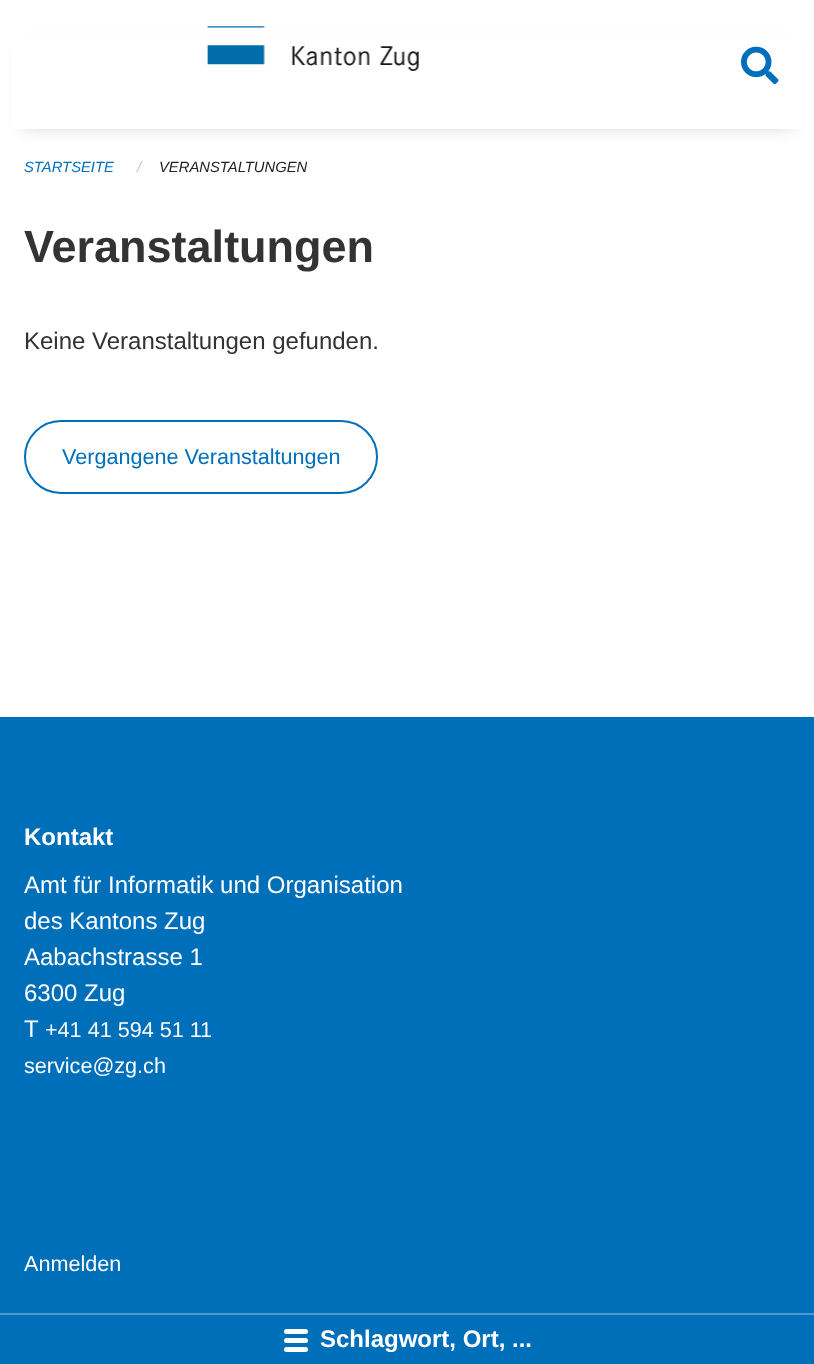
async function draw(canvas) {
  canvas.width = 814;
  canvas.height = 1364;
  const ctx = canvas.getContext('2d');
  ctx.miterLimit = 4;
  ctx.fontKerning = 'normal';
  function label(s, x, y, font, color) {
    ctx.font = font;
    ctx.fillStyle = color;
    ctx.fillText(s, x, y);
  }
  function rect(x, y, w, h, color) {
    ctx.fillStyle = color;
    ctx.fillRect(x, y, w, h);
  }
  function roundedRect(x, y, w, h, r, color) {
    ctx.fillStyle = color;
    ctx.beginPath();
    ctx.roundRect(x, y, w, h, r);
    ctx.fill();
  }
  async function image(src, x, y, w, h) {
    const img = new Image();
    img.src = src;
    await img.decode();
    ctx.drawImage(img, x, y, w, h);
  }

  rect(0, 0, 814, 1364, '#fff');
  ctx.fillStyle = '#00000026';
  ctx.filter = 'blur(7.5px)';
  ctx.beginPath();
  ctx.rect(23, 45, 769, 84);
  ctx.fill();
  ctx.filter = 'none';
  rect(12, 34, 791, 95, '#fff');
  await image('assets/img1.png', 207, 26, 213, 45);
  await image('assets/img2.png', 741, 46, 38, 39);
  label('STARTSEITE', 24, 172, 'italic 14.8px Liberation Sans', '#006fba');
  label('/', 137, 172, 'italic 16px Liberation Sans', '#cacaca');
  label('VERANSTALTUNGEN', 159, 172, 'italic 14.8px Liberation Sans', '#222');
  label('Veranstaltungen', 24, 262, 'bold 45px Liberation Sans', '#333');
  label('Keine Veranstaltungen gefunden.', 24, 349, '24px Liberation Sans', '#333');
  ctx.beginPath();
  ctx.roundRect(25, 421, 352, 72, 36);
  ctx.strokeStyle = '#006fba';
  ctx.lineWidth = 2;
  ctx.stroke();
  label('Vergangene Veranstaltungen', 62, 464, '21.6px Liberation Sans', '#006fba');
  rect(0, 717, 814, 647, '#006fba');
  label('Kontakt', 24, 845, 'bold 24px Liberation Sans', '#fff');
  label('Amt für Informatik und Organisation', 24, 893, '24px Liberation Sans', '#fff');
  label('des Kantons Zug', 24, 929, '24px Liberation Sans', '#fff');
  label('Aabachstrasse 1', 24, 965, '24px Liberation Sans', '#fff');
  label('6300 Zug', 24, 1001, '24px Liberation Sans', '#fff');
  label('T', 24, 1037, '24px Liberation Sans', '#fff');
  label('+41 41 594 51 11', 45, 1037, '21.6px Liberation Sans', '#fff');
  label('service@zg.ch', 24, 1073, '21.6px Liberation Sans', '#fff');
  label('Anmelden', 24, 1271, '21.6px Liberation Sans', '#fff');
  rect(0, 1313, 814, 2, '#4d9acf');
  roundedRect(284, 1329, 24, 5, 2.5, '#fff');
  roundedRect(284, 1338, 24, 5, 2.5, '#fff');
  roundedRect(284, 1347, 24, 5, 2.5, '#fff');
  label('Schlagwort, Ort, ...', 320, 1347, 'bold 24px Liberation Sans', '#fff');
}

draw(document.querySelector('canvas'));
